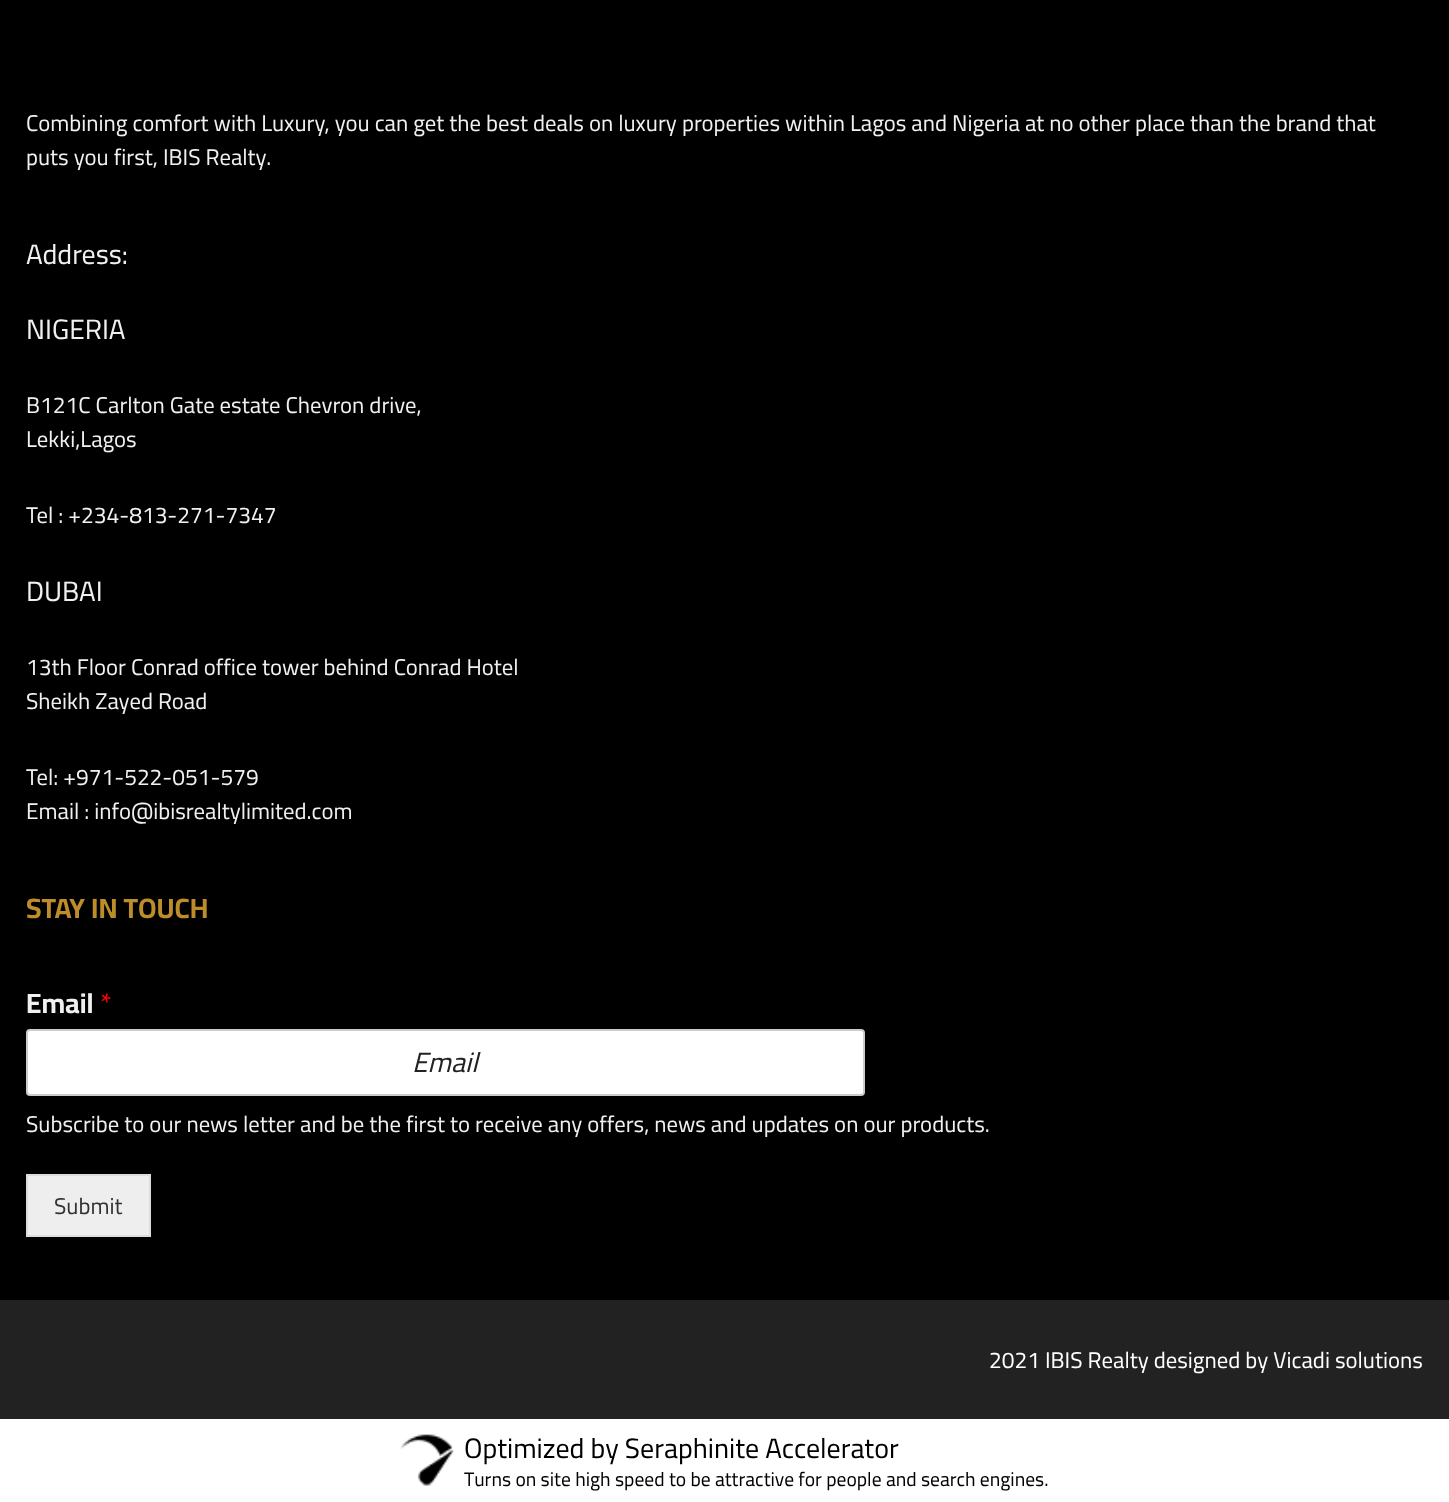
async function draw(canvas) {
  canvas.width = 1449;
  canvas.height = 1502;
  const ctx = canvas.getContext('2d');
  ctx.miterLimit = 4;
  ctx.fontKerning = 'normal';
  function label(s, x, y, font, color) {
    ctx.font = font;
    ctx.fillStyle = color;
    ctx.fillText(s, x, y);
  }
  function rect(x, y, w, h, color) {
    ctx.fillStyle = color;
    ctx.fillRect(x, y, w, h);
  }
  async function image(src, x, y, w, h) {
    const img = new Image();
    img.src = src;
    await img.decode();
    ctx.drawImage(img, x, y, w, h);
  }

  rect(0, 0, 1449, 1502, '#fff');
  rect(0, 0, 1449, 1300, '#000');
  label('Combining comfort with Luxury, you can get the best deals on luxury properties within Lagos and Nigeria at no other place than the brand that', 26, 131, '22.75px Cairo', '#f0f0f0');
  label('puts you first, IBIS Realty.', 26, 165, '22.75px Cairo', '#f0f0f0');
  label('Address:', 26, 264, '28px Cairo', '#f0f0f0');
  label('NIGERIA', 26, 339, '28px Cairo', '#f0f0f0');
  label('B121C Carlton Gate estate Chevron drive,', 26, 413, '22.75px Cairo', '#f0f0f0');
  label('Lekki,Lagos', 26, 447, '22.75px Cairo', '#f0f0f0');
  label('Tel : +234-813-271-7347', 26, 523, '22.75px Cairo', '#f0f0f0');
  label('DUBAI', 26, 601, '28px Cairo', '#f0f0f0');
  label('13th Floor Conrad office tower behind Conrad Hotel', 26, 675, '22.75px Cairo', '#f0f0f0');
  label('Sheikh Zayed Road', 26, 709, '22.75px Cairo', '#f0f0f0');
  label('Tel: +971-522-051-579', 26, 785, '22.75px Cairo', '#f0f0f0');
  label('Email : info@ibisrealtylimited.com', 26, 819, '22.75px Cairo', '#f0f0f0');
  label('STAY IN TOUCH', 26, 918, 'bold 28px Cairo', '#bd8d29');
  label('Email', 26, 1013, 'bold 28px Cairo', '#f0f0f0');
  label('*', 100, 1013, '28px Cairo', '#f00');
  ctx.fillStyle = '#fff';
  ctx.beginPath();
  ctx.roundRect(27, 1030, 837, 65, 3);
  ctx.fill();
  ctx.strokeStyle = '#ccc';
  ctx.lineWidth = 2;
  ctx.stroke();
  label('Email', 412, 1072, 'italic 28px Cairo', '#222');
  label('Subscribe to our news letter and be the first to receive any offers, news and updates on our products.', 26, 1132, '22.75px Cairo', '#f0f0f0');
  ctx.fillStyle = '#eee';
  ctx.beginPath();
  ctx.rect(27, 1175, 123, 61);
  ctx.fill();
  ctx.strokeStyle = '#ddd';
  ctx.stroke();
  label('Submit', 54, 1214, '22.75px Cairo', '#333');
  rect(0, 1300, 1449, 119, '#222');
  label('2021 IBIS Realty designed by Vicadi solutions', 989, 1368, '22.75px Cairo', '#fff');
  await image('assets/img1.png', 400, 1434, 54, 52);
  label('Optimized by Seraphinite Accelerator', 464, 1458, '28px Cairo', '#000');
  label('Turns on site high speed to be attractive for people and search engines.', 464, 1486, '19.6px Cairo', '#000');
}

draw(document.querySelector('canvas'));
